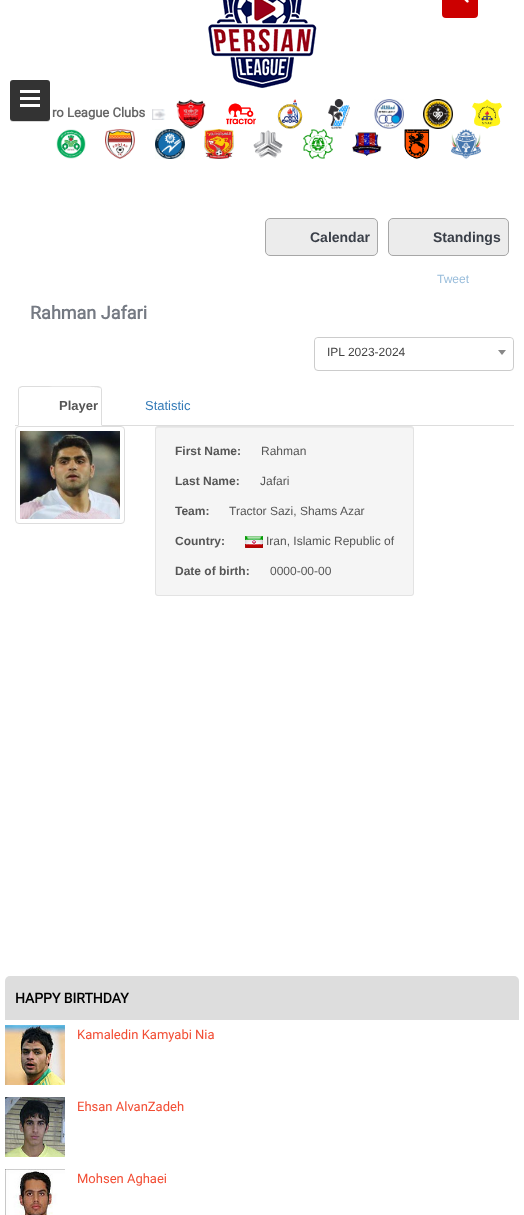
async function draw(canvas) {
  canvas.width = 524;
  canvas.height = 1215;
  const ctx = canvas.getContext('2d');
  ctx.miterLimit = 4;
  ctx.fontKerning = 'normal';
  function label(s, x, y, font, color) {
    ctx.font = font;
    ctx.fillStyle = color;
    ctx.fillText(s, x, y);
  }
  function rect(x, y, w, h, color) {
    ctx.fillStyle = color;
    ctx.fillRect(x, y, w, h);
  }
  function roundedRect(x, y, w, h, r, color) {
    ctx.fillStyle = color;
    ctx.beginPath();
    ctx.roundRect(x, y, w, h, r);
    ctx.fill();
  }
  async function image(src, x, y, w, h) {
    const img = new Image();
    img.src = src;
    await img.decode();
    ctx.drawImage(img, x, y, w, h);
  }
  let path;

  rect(0, 0, 524, 1215, '#fff');
  await image('assets/img1.png', 208, 0, 109, 88);
  roundedRect(442, -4, 36, 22, 4, '#c00');
  await image('assets/img2.png', 464, 0, 5, 3);
  ctx.fillStyle = '#00000026';
  ctx.filter = 'blur(0.5px)';
  ctx.beginPath();
  ctx.roundRect(10, 81, 40, 41, 3);
  ctx.fill();
  ctx.filter = 'none';
  roundedRect(10, 80, 40, 41, 3, '#333');
  rect(20, 90, 20, 3, '#fff');
  rect(20, 97, 20, 3, '#fff');
  rect(20, 104, 20, 3, '#fff');
  label('ro League Clubs', 52, 117, 'bold 13px Roboto', '#666');
  await image('assets/img3.png', 152, 109, 14, 11);
  await image('assets/img4.png', 176, 99, 30, 30);
  await image('assets/img5.png', 226, 103, 30, 22);
  await image('assets/img6.png', 277, 99, 26, 30);
  await image('assets/img7.png', 328, 99, 22, 30);
  await image('assets/img8.png', 374, 99, 30, 30);
  await image('assets/img9.png', 423, 99, 30, 30);
  await image('assets/img10.png', 472, 99, 30, 30);
  await image('assets/img11.png', 56, 129, 30, 30);
  await image('assets/img12.png', 105, 129, 30, 30);
  await image('assets/img13.png', 155, 129, 30, 30);
  await image('assets/img14.png', 204, 129, 30, 30);
  await image('assets/img15.png', 253, 130, 30, 28);
  await image('assets/img16.png', 303, 129, 30, 30);
  await image('assets/img17.png', 352, 132, 30, 24);
  await image('assets/img18.png', 404, 129, 26, 30);
  await image('assets/img19.png', 451, 129, 30, 30);
  ctx.fillStyle = '#ececec';
  ctx.beginPath();
  ctx.roundRect(265.5, 218.5, 112, 37, 4.5);
  ctx.fill();
  ctx.strokeStyle = '#a7a7a7';
  ctx.stroke();
  label('Calendar', 310, 242, 'bold 14px Liberation Sans', '#3a3f48');
  ctx.fillStyle = '#ececec';
  ctx.beginPath();
  ctx.roundRect(388.5, 218.5, 120, 37, 4.5);
  ctx.fill();
  ctx.stroke();
  label('Standings', 433, 242, 'bold 14px Liberation Sans', '#3a3f48');
  label('Tweet', 437, 283, '12px Liberation Sans', '#99bddb');
  label('Rahman Jafari', 30, 319, 'bold 18px Roboto', '#757a83');
  ctx.beginPath();
  ctx.roundRect(314.5, 337.5, 199, 33, 3.5);
  ctx.strokeStyle = '#ccc';
  ctx.stroke();
  roundedRect(315, 338, 198, 28, 4, '#fff');
  label('IPL 2023-2024', 327, 356, '12px Liberation Sans', '#444');
  ctx.fillStyle = '#888';
  path = new Path2D('M498 350H506L502 355Z');
  ctx.fill(path);
  rect(15, 425, 499, 1, '#ddd');
  ctx.fillStyle = '#fff';
  ctx.beginPath();
  ctx.roundRect(18, 386, 84, 40, [4, 4, 0, 0]);
  ctx.fill();
  ctx.fillStyle = '#ddd';
  path = new Path2D('M22 386L19 387L20 388L22 387H35C42 387 98 386 100 388L101 387L98 386Z');
  ctx.fill(path);
  path = new Path2D('M102 426V390C102 389 101.5 388 101 387L100 388C101 388 101 389 101 390V425Z');
  ctx.fill(path);
  path = new Path2D('M18 426L19 425V390C19 389 19 388 20 388L19 387C18.5 388 18 389 18 390Z');
  ctx.fill(path);
  label('Player', 59, 410, 'bold 13px Liberation Sans', '#555');
  label('Statistic', 145, 410, '13px Liberation Sans', '#337ab7');
  ctx.beginPath();
  ctx.roundRect(15.5, 426.5, 109, 97, 3.5);
  ctx.strokeStyle = '#ddd';
  ctx.stroke();
  await image('assets/img20.png', 20, 431, 100, 88);
  roundedRect(155, 426, 259, 170, 3, '#f5f5f5');
  ctx.fillStyle = '#e9e9e9';
  path = new Path2D('M158 428H411C412 428 413 429 413 430C413 429 413 427 411 427H158C156 427 156 429 156 430C156 429 157 428 158 428Z');
  ctx.fill(path);
  ctx.beginPath();
  ctx.roundRect(155.5, 426.5, 258, 169, 2.5);
  ctx.strokeStyle = '#e3e3e3';
  ctx.stroke();
  label('First Name:', 175, 455, 'bold 12px Liberation Sans', '#555');
  label('Rahman', 261, 455, '12px Liberation Sans', '#555');
  label('Last Name:', 175, 485, 'bold 12px Liberation Sans', '#555');
  label('Jafari', 260, 485, '12px Liberation Sans', '#555');
  label('Team:', 175, 515, 'bold 12px Liberation Sans', '#555');
  label('Tractor Sazi, Shams Azar', 229, 515, '12px Liberation Sans', '#555');
  label('Country:', 175, 545, 'bold 12px Liberation Sans', '#555');
  await image('assets/img21.png', 245, 536, 18, 12);
  label('Iran, Islamic Republic of', 266, 545, '12px Liberation Sans', '#555');
  label('Date of birth:', 175, 575, 'bold 12px Liberation Sans', '#555');
  label('0000-00-00', 270, 575, '12px Liberation Sans', '#555');
  ctx.fillStyle = '#ddd';
  ctx.beginPath();
  ctx.roundRect(5, 976, 514, 44, [5, 5, 0, 0]);
  ctx.fill();
  label('HAPPY BIRTHDAY', 15, 1003, 'bold 14px Roboto', '#000');
  await image('assets/img22.png', 5, 1025, 60, 60);
  label('Kamaledin Kamyabi Nia', 77, 1039, '13px Roboto', '#f24d34');
  await image('assets/img23.png', 5, 1097, 60, 60);
  label('Ehsan AlvanZadeh', 77, 1111, '13px Roboto', '#f24d34');
  await image('assets/img24.png', 5, 1169, 60, 46);
  label('Mohsen Aghaei', 77, 1183, '13px Roboto', '#f24d34');
}

draw(document.querySelector('canvas'));
